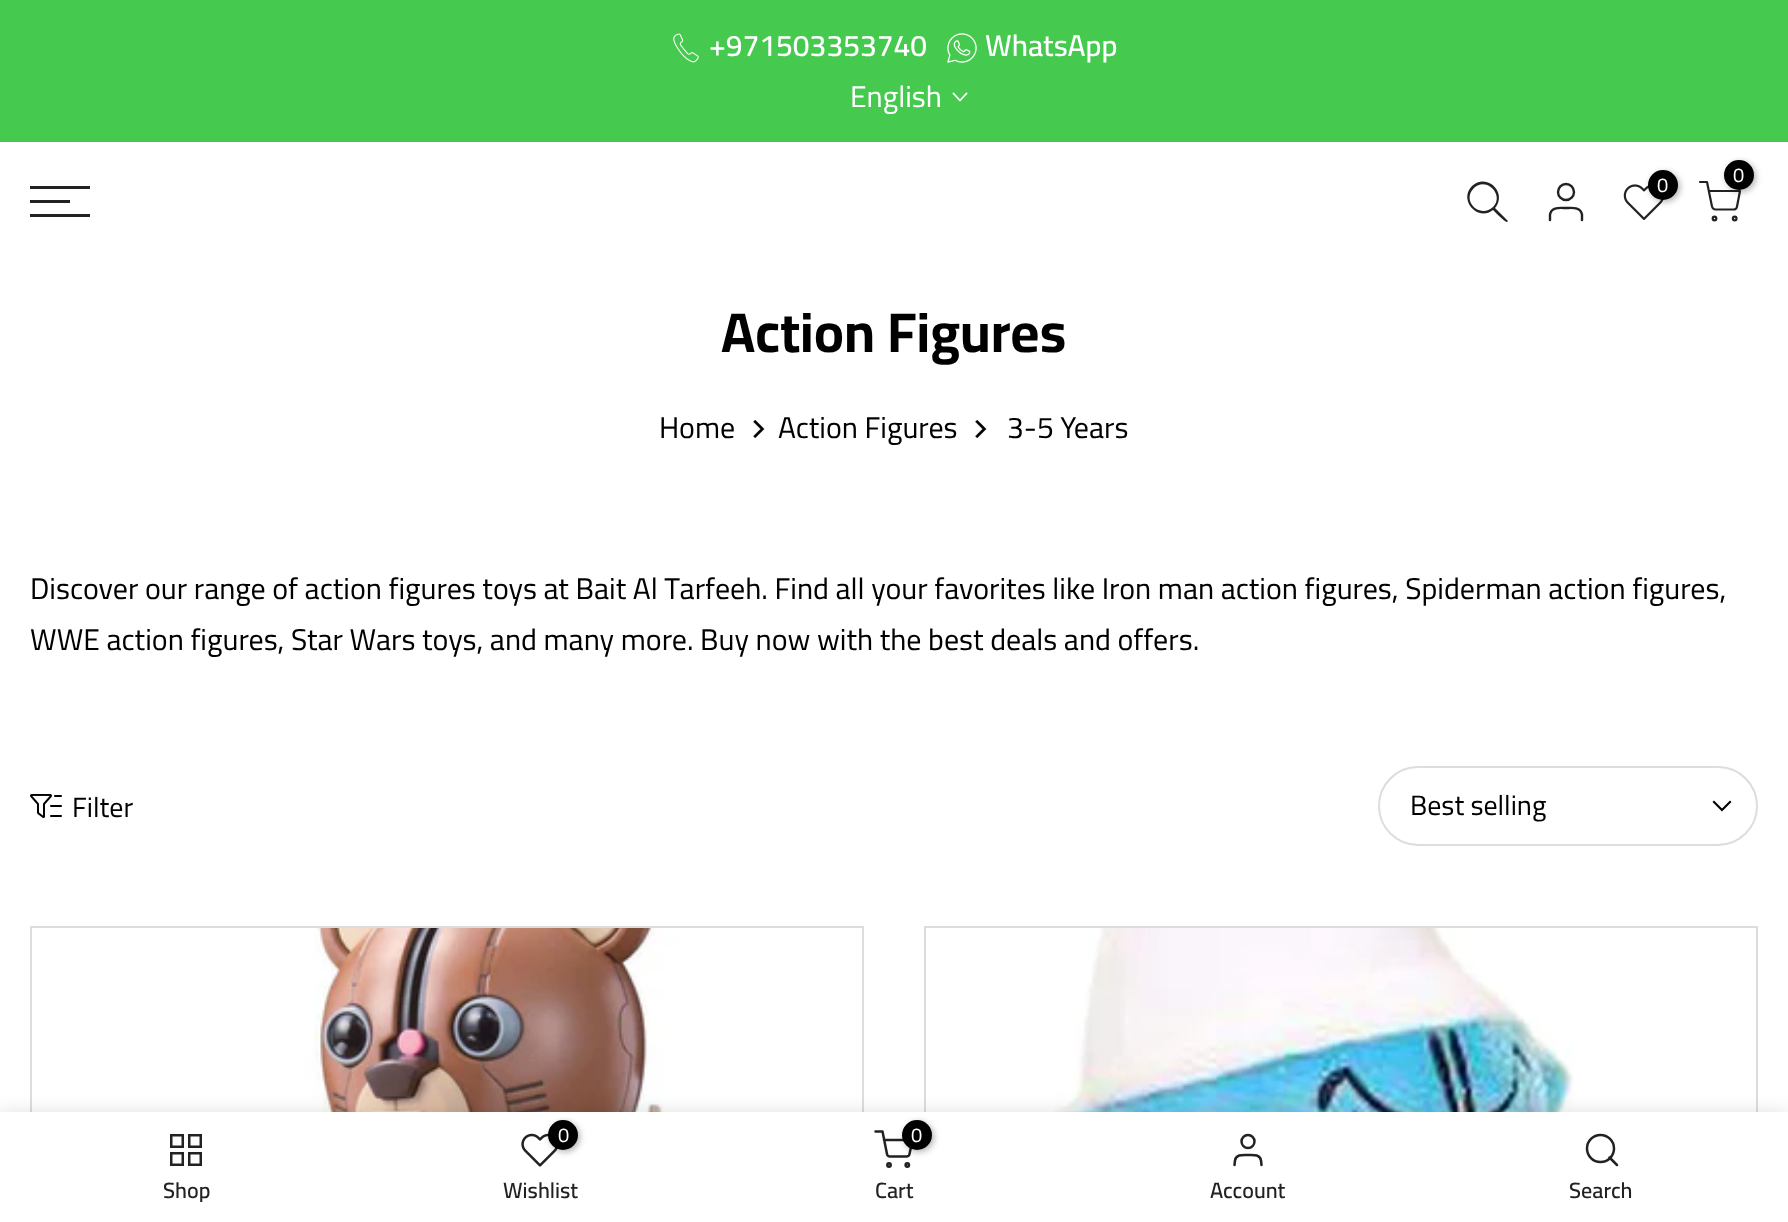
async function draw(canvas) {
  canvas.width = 1788;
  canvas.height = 1222;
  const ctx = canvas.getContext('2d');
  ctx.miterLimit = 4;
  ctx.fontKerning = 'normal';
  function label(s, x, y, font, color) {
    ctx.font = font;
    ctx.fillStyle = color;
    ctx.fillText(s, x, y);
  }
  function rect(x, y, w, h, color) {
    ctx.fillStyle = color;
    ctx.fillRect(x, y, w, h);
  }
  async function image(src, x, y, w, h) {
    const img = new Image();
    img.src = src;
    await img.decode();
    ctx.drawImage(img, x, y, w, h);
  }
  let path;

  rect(0, 0, 1788, 1222, '#fff');
  rect(0, 0, 1788, 142, '#45c94e');
  await image('assets/img1.png', 673, 33, 26, 30);
  label('+971503353740', 709, 56, '600 30px Cairo', '#fff');
  await image('assets/img2.png', 947, 33, 30, 30);
  label('WhatsApp', 985, 56, '600 30px Cairo', '#fff');
  label('English', 850, 107, '30px Cairo', '#fff');
  path = new Path2D('M966.5 93.5L960 100.5L953.5 93.5');
  ctx.strokeStyle = '#fff';
  ctx.lineWidth = 1.7;
  ctx.lineCap = 'square';
  ctx.stroke(path);
  path = new Path2D('M1700 182H1707L1712 206.5C1712.5 208 1714 209.5 1715.5 209.5H1733.5C1735.5 209.5 1737 208 1737 206.5L1740 191H1709');
  ctx.strokeStyle = '#222';
  ctx.lineWidth = 2.2;
  ctx.lineCap = 'round';
  ctx.lineJoin = 'round';
  ctx.stroke(path);
  ctx.fillStyle = '#0000004d';
  ctx.filter = 'blur(3px)';
  ctx.beginPath();
  ctx.roundRect(1726, 162, 30, 30, 15);
  ctx.fill();
  ctx.filter = 'none';
  ctx.fillStyle = '#000';
  ctx.beginPath();
  ctx.arc(1739, 175, 15, 0, 2 * Math.PI);
  ctx.fill();
  label('0', 1733, 182, '20px Cairo', '#fff');
  ctx.beginPath();
  ctx.arc(1714.5, 218.5, 1.8, 0, 2 * Math.PI);
  ctx.stroke();
  ctx.beginPath();
  ctx.arc(1734.7, 218.5, 1.8, 0, 2 * Math.PI);
  ctx.stroke();
  ctx.fillStyle = '#222';
  path = new Path2D('M1493 207C1480 219 1461 201 1474 188C1486 176 1505 195 1493 207ZM1493 210C1478 222 1458 200 1472 186C1487 172 1508 193 1495 208L1508 221L1507 222C1506 223 1495 212 1493 210Z');
  ctx.fill(path, 'evenodd');
  ctx.beginPath();
  ctx.arc(1566, 192, 8, 0, 2 * Math.PI);
  ctx.lineWidth = 2.4;
  ctx.stroke();
  path = new Path2D('M1582 220V214.5C1580.5 206.5 1572 208 1566 208C1560 208 1551.5 206.5 1550 214.5V220');
  ctx.stroke(path);
  await image('assets/img3.png', 1623, 184, 41, 36);
  ctx.fillStyle = '#0000004d';
  ctx.filter = 'blur(3px)';
  ctx.beginPath();
  ctx.roundRect(1650, 172, 30, 30, 15);
  ctx.fill();
  ctx.filter = 'none';
  ctx.fillStyle = '#000';
  ctx.beginPath();
  ctx.arc(1663, 185, 15, 0, 2 * Math.PI);
  ctx.fill();
  label('0', 1657, 192, '20px Cairo', '#fff');
  rect(30, 186, 60, 3, '#222');
  rect(30, 200, 40, 3, '#222');
  rect(30, 214, 60, 3, '#222');
  label('Action Figures', 721, 352, 'bold 56px Cairo', '#000');
  label('Home', 659, 438, '30px Cairo', '#000');
  await image('assets/img4.png', 753, 420, 12, 18);
  label('Action Figures', 778, 438, '30px Cairo', '#000');
  await image('assets/img4.png', 975, 420, 12, 18);
  label('3-5 Years', 1007, 438, '30px Cairo', '#000');
  label('Discover our range of action figures toys at Bait Al Tarfeeh. Find all your favorites like Iron man action figures, Spiderman action figures,', 30, 599, '30px Cairo', '#000');
  label('WWE action figures, Star Wars toys, and many more. Buy now with the best deals and offers.', 30, 650, '30px Cairo', '#000');
  await image('assets/img5.png', 30, 794, 32, 24);
  label('Filter', 72, 817, '28px Cairo', '#000');
  ctx.beginPath();
  ctx.roundRect(1379, 767, 378, 78, 39);
  ctx.strokeStyle = '#ddd';
  ctx.lineWidth = 2;
  ctx.lineJoin = 'miter';
  ctx.stroke();
  label('Best selling', 1410, 815, '28px Cairo', '#000');
  path = new Path2D('M1730 802L1722 810L1714 802');
  ctx.strokeStyle = '#000';
  ctx.lineWidth = 2.1;
  ctx.lineCap = 'square';
  ctx.stroke(path);
  ctx.strokeStyle = '#ddd';
  ctx.lineWidth = 2;
  ctx.strokeRect(31, 927, 832, 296);
  await image('assets/img6.png', 254, 928, 458, 184);
  ctx.strokeRect(925, 927, 832, 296);
  await image('assets/img7.png', 984, 928, 590, 184);
  ctx.fillStyle = '#0000001f';
  ctx.filter = 'blur(9px)';
  ctx.beginPath();
  ctx.rect(0, 1112, 1788, 110);
  ctx.fill();
  ctx.filter = 'none';
  rect(0, 1112, 1788, 110, '#fff');
  ctx.strokeStyle = '#222';
  ctx.lineWidth = 2.5;
  ctx.strokeRect(171.25, 1135.25, 11.5, 11.5);
  ctx.strokeRect(189.25, 1135.25, 11.5, 11.5);
  ctx.strokeRect(171.25, 1153.25, 11.5, 11.5);
  ctx.strokeRect(189.25, 1153.25, 11.5, 11.5);
  ctx.save();
  ctx.beginPath();
  ctx.rect(30, 1180, 314, 22);
  ctx.clip();
  label('Shop', 163, 1198, '600 22px Cairo', '#222');
  ctx.restore();
  await image('assets/img8.png', 521, 1133, 37, 34);
  ctx.fillStyle = '#0000004d';
  ctx.filter = 'blur(3px)';
  ctx.beginPath();
  ctx.roundRect(550, 1122, 30, 30, 15);
  ctx.fill();
  ctx.filter = 'none';
  ctx.fillStyle = '#000';
  ctx.beginPath();
  ctx.arc(563, 1135, 15, 0, 2 * Math.PI);
  ctx.fill();
  label('0', 558, 1142, '20px Cairo', '#fff');
  label('Wishlist', 503, 1198, '600 22px Cairo', '#222');
  path = new Path2D('M875.5 1131.5H882.5L887 1154C887 1155.5 888.5 1156.5 890 1156.5H906.5C908 1156.5 909.5 1155.5 909.5 1154L912.5 1140H884');
  ctx.lineCap = 'round';
  ctx.lineJoin = 'round';
  ctx.stroke(path);
  ctx.fillStyle = '#0000004d';
  ctx.filter = 'blur(3px)';
  ctx.beginPath();
  ctx.roundRect(904, 1122, 30, 30, 15);
  ctx.fill();
  ctx.filter = 'none';
  ctx.fillStyle = '#000';
  ctx.beginPath();
  ctx.arc(917, 1135, 15, 0, 2 * Math.PI);
  ctx.fill();
  label('0', 911, 1142, '20px Cairo', '#fff');
  ctx.beginPath();
  ctx.arc(889, 1165, 1.7, 0, 2 * Math.PI);
  ctx.stroke();
  ctx.beginPath();
  ctx.arc(907.3, 1165, 1.7, 0, 2 * Math.PI);
  ctx.stroke();
  label('Cart', 875, 1198, '600 22px Cairo', '#222');
  ctx.beginPath();
  ctx.arc(1248, 1141.5, 6.5, 0, 2 * Math.PI);
  ctx.stroke();
  path = new Path2D('M1261.5 1165L1261 1160.5C1260 1154 1253 1155 1248 1155C1243 1155 1236 1154 1235 1160.5L1234.5 1165');
  ctx.stroke(path);
  label('Account', 1210, 1198, '600 22px Cairo', '#222');
  ctx.beginPath();
  ctx.arc(1600.5, 1148.5, 13.5, 0, 2 * Math.PI);
  ctx.stroke();
  path = new Path2D('M1617 1165L1609.5 1157.5');
  ctx.stroke(path);
  label('Search', 1569, 1198, '600 22px Cairo', '#222');
}

draw(document.querySelector('canvas'));
